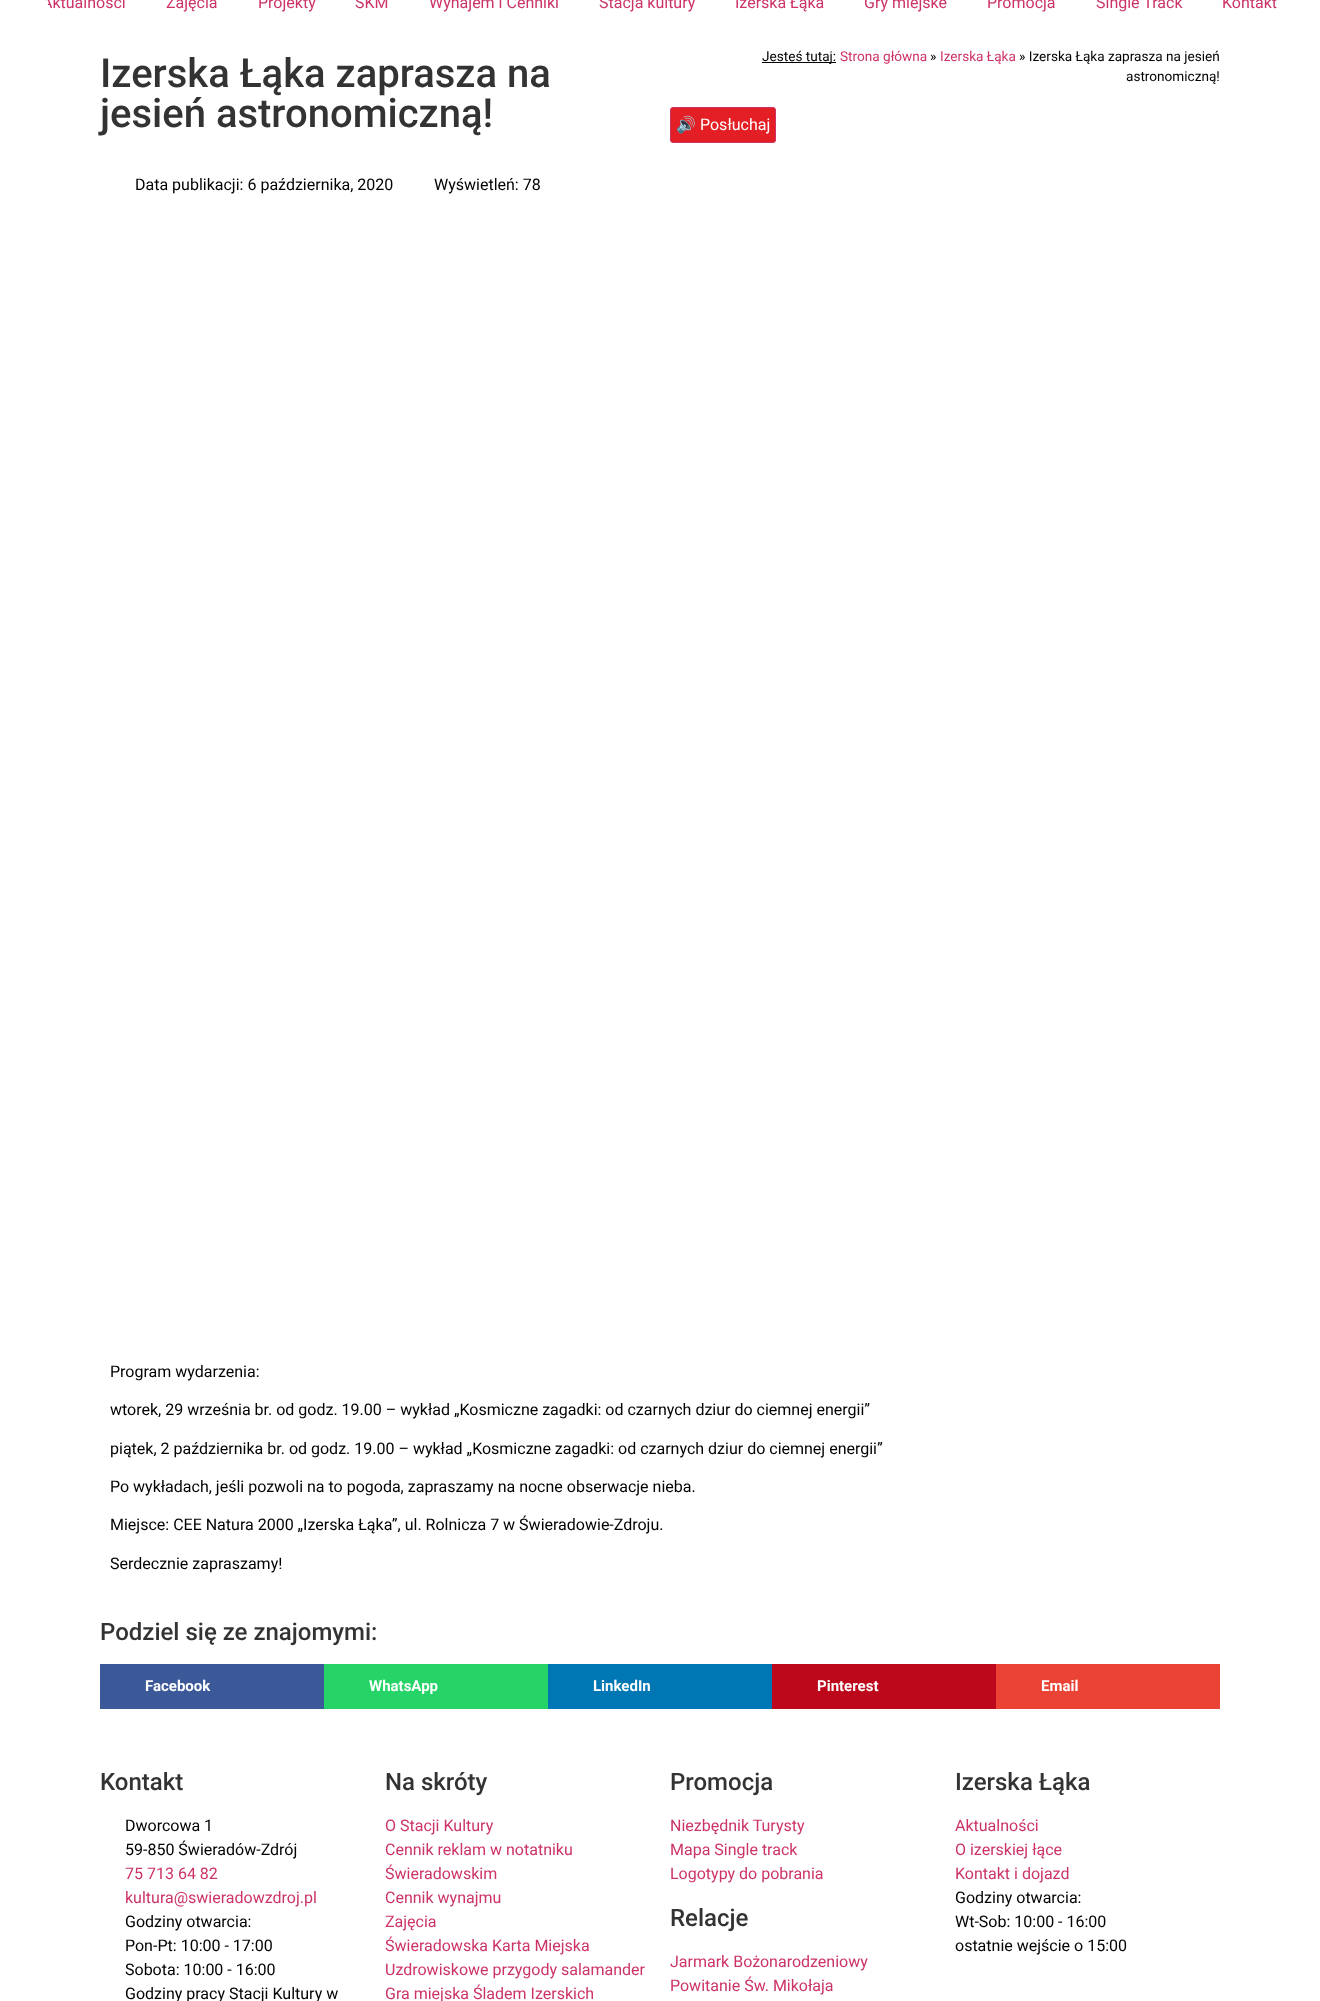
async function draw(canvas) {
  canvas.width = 1320;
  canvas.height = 2001;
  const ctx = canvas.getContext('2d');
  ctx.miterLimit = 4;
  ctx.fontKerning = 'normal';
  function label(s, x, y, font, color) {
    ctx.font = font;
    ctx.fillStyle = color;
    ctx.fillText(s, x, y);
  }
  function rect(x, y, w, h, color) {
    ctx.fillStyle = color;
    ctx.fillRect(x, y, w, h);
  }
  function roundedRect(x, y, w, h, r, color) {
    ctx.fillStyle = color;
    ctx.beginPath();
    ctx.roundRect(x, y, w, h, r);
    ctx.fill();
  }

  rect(0, 0, 1320, 2001, '#fff');
  label('Aktualności', 42, 8, '16px Roboto', '#c36');
  roundedRect(0, 0, 48, 48, 3, '#fff');
  label('Zajęcia', 166, 8, '16px Roboto', '#c36');
  label('Projekty', 258, 8, '16px Roboto', '#c36');
  label('ŚKM', 355, 8, '16px Roboto', '#c36');
  label('Wynajem i Cenniki', 429, 8, '16px Roboto', '#c36');
  label('Stacja kultury', 599, 8, '16px Roboto', '#c36');
  label('Izerska Łąka', 735, 8, '16px Roboto', '#c36');
  label('Gry miejske', 864, 8, '16px Roboto', '#c36');
  label('Promocja', 987, 8, '16px Roboto', '#c36');
  label('Single Track', 1096, 8, '16px Roboto', '#c36');
  label('Kontakt', 1222, 8, '16px Roboto', '#c36');
  label('Izerska Łąka zaprasza na', 100, 87, '500 40px Roboto', '#333');
  label('jesień astronomiczną!', 100, 127, '500 40px Roboto', '#333');
  rect(762, 62, 74, 1, '#000');
  label('Jesteś tutaj:', 762, 61, '13.6px Roboto', '#000');
  label('Strona główna', 840, 61, '13.6px Roboto', '#c36');
  label('»', 930, 61, '13.6px Roboto', '#000');
  label('Izerska Łąka', 940, 61, '13.6px Roboto', '#c36');
  label('» Izerska Łąka zaprasza na jesień', 1019, 61, '13.6px Roboto', '#000');
  label('astronomiczną!', 1126, 81, '13.6px Roboto', '#000');
  ctx.fillStyle = '#e31e24';
  ctx.beginPath();
  ctx.roundRect(670.5, 107.5, 105, 35, 2.5);
  ctx.fill();
  ctx.strokeStyle = '#c36';
  ctx.stroke();
  label('🔊', 676, 130, '16px Noto Color Emoji', '#fff');
  label('Posłuchaj', 700, 130, '16px Roboto', '#fff');
  label('Data publikacji: 6 października, 2020', 135, 190, '16px Roboto', '#000');
  label('Wyświetleń: 78', 434, 190, '16px Roboto', '#000');
  label('Program wydarzenia:', 110, 1377, '16px Roboto', '#000');
  label('wtorek, 29 września br. od godz. 19.00 – wykład „Kosmiczne zagadki: od czarnych dziur do ciemnej energii”', 110, 1415, '16px Roboto', '#000');
  label('piątek, 2 października br. od godz. 19.00 – wykład „Kosmiczne zagadki: od czarnych dziur do ciemnej energii”', 110, 1454, '16px Roboto', '#000');
  label('Po wykładach, jeśli pozwoli na to pogoda, zapraszamy na nocne obserwacje nieba.', 110, 1492, '16px Roboto', '#000');
  label('Miejsce: CEE Natura 2000 „Izerska Łąka”, ul. Rolnicza 7 w Świeradowie-Zdroju.', 110, 1530, '16px Roboto', '#000');
  label('Serdecznie zapraszamy!', 110, 1569, '16px Roboto', '#000');
  label('Podziel się ze znajomymi:', 100, 1640, '500 24px Roboto', '#333');
  rect(100, 1664, 224, 45, '#3b5998');
  label('Facebook', 145, 1691, 'bold 15px Roboto', '#fff');
  rect(324, 1664, 224, 45, '#25d366');
  label('WhatsApp', 369, 1691, 'bold 15px Roboto', '#fff');
  rect(548, 1664, 224, 45, '#0077b5');
  label('LinkedIn', 593, 1691, 'bold 15px Roboto', '#fff');
  rect(772, 1664, 224, 45, '#bd081c');
  label('Pinterest', 817, 1691, 'bold 15px Roboto', '#fff');
  rect(996, 1664, 224, 45, '#ea4335');
  label('Email', 1041, 1691, 'bold 15px Roboto', '#fff');
  label('Kontakt', 100, 1790, '500 24px Roboto', '#333');
  label('Dworcowa 1', 125, 1831, '16px Roboto', '#000');
  label('59-850 Świeradów-Zdrój', 125, 1855, '16px Roboto', '#000');
  label('75 713 64 82', 125, 1879, '16px Roboto', '#c36');
  label('kultura@swieradowzdroj.pl', 125, 1903, '16px Roboto', '#c36');
  label('Godziny otwarcia:', 125, 1927, '16px Roboto', '#000');
  label('Pon-Pt: 10:00 - 17:00', 125, 1951, '16px Roboto', '#000');
  label('Sobota: 10:00 - 16:00', 125, 1975, '16px Roboto', '#000');
  label('Godziny pracy Stacji Kultury w', 125, 1999, '16px Roboto', '#000');
  label('Na skróty', 385, 1790, '500 24px Roboto', '#333');
  label('O Stacji Kultury', 385, 1831, '16px Roboto', '#c36');
  label('Cennik reklam w notatniku', 385, 1855, '16px Roboto', '#c36');
  label('Świeradowskim', 385, 1879, '16px Roboto', '#c36');
  label('Cennik wynajmu', 385, 1903, '16px Roboto', '#c36');
  label('Zajęcia', 385, 1927, '16px Roboto', '#c36');
  label('Świeradowska Karta Miejska', 385, 1951, '16px Roboto', '#c36');
  label('Uzdrowiskowe przygody salamander', 385, 1975, '16px Roboto', '#c36');
  label('Gra miejska Śladem Izerskich', 385, 1999, '16px Roboto', '#c36');
  label('Promocja', 670, 1790, '500 24px Roboto', '#333');
  label('Niezbędnik Turysty', 670, 1831, '16px Roboto', '#c36');
  label('Mapa Single track', 670, 1855, '16px Roboto', '#c36');
  label('Logotypy do pobrania', 670, 1879, '16px Roboto', '#c36');
  label('Relacje', 670, 1926, '500 24px Roboto', '#333');
  label('Jarmark Bożonarodzeniowy', 670, 1967, '16px Roboto', '#c36');
  label('Powitanie Św. Mikołaja', 670, 1991, '16px Roboto', '#c36');
  label('Izerska Łąka', 955, 1790, '500 24px Roboto', '#333');
  label('Aktualności', 955, 1831, '16px Roboto', '#c36');
  label('O izerskiej łące', 955, 1855, '16px Roboto', '#c36');
  label('Kontakt i dojazd', 955, 1879, '16px Roboto', '#c36');
  label('Godziny otwarcia:', 955, 1903, '16px Roboto', '#000');
  label('Wt-Sob: 10:00 - 16:00', 955, 1927, '16px Roboto', '#000');
  label('ostatnie wejście o 15:00', 955, 1951, '16px Roboto', '#000');
}

draw(document.querySelector('canvas'));
